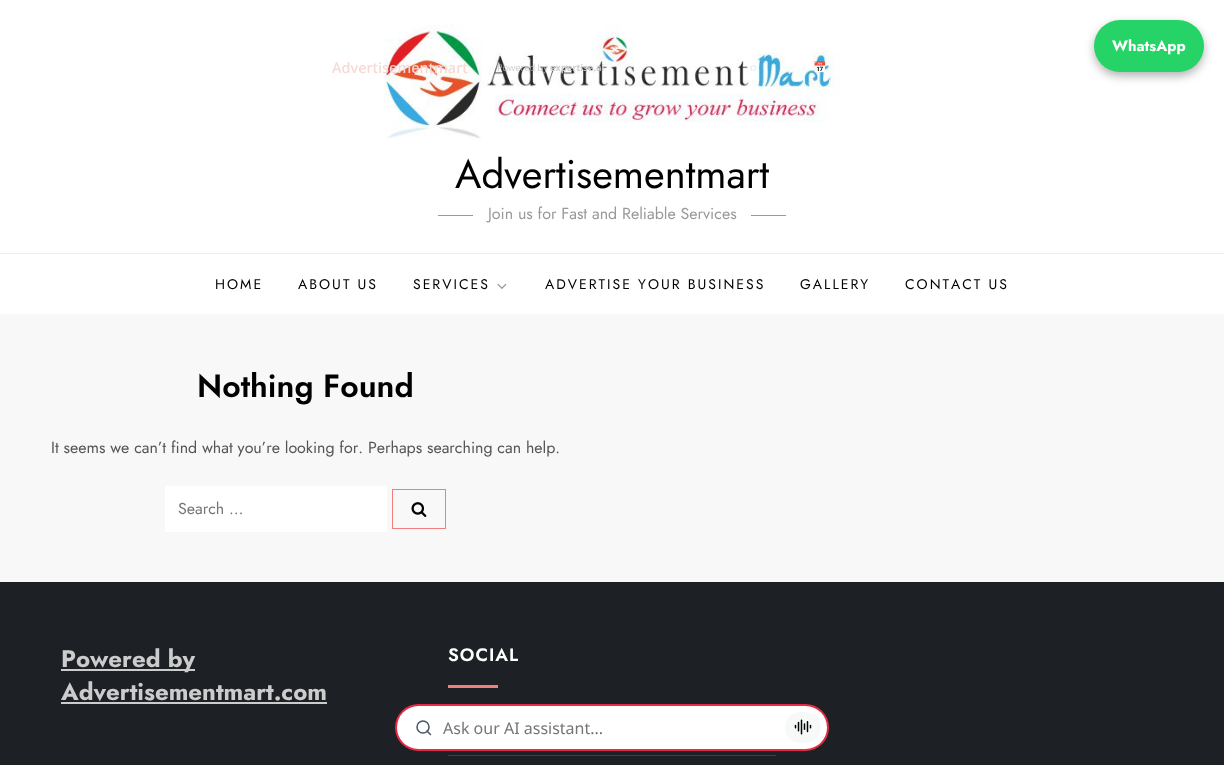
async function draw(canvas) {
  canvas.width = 1224;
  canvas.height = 765;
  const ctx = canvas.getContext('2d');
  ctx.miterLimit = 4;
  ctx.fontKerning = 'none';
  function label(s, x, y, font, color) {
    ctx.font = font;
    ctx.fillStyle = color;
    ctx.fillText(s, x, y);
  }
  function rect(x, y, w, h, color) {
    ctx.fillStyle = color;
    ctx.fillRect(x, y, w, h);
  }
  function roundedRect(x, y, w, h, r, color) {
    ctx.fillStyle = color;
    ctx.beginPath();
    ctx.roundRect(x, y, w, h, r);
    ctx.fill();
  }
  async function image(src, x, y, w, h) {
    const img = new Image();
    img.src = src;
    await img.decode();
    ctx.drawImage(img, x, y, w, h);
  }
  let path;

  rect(0, 0, 1224, 765, '#f8f8f8');
  rect(0, 0, 1224, 314, '#fff');
  ctx.fillStyle = '#0000004d';
  ctx.filter = 'blur(5px)';
  ctx.beginPath();
  ctx.roundRect(1094, 24, 110, 52, 26);
  ctx.fill();
  ctx.filter = 'none';
  roundedRect(1094, 20, 110, 52, 26, '#25d366');
  label('WhatsApp', 1112, 51, 'bold 15px Jost', '#fff');
  await image('assets/img2.png', 384, 25, 456, 114);
  label('Advertisementmart', 332, 73, '500 14.5px Noto Sans', '#f7d9d3');
  label('Powered by', 497, 71, '300 9.5px Noto Sans', '#c1c1c1');
  label('expertise.ai', 550, 71, '600 9.5px Noto Sans', '#ccc');
  label('o', 750, 71, '500 11px Noto Sans', '#e1f0f6');
  label('📅', 813, 71, '11px Noto Color Emoji', '#acdaec');
  rect(0, 582, 1224, 183, '#1d2024');
  roundedRect(395, 704, 434, 47, 23.5, '#e52a46');
  roundedRect(397, 706, 430, 43, 21.5, '#fff');
  ctx.beginPath();
  ctx.arc(423, 727, 6, 0, 2 * Math.PI);
  ctx.strokeStyle = '#4b5563';
  ctx.lineWidth = 1.5;
  ctx.stroke();
  path = new Path2D('M430.5 734.5L427 731');
  ctx.lineCap = 'round';
  ctx.lineJoin = 'round';
  ctx.stroke(path);
  label('Ask our AI assistant...', 443, 734, '16px Noto Sans', '#757575');
  roundedRect(785, 712, 36, 31, 15.5, '#f7f8f8');
  await image('assets/img1.png', 794, 719, 18, 16);
  label('Advertisementmart', 455, 188, '40px Jost', '#000');
  rect(438, 215, 35, 1, '#999');
  label('Join us for Fast and Reliable Services', 488, 219, '16px Jost', '#999');
  rect(751, 215, 35, 1, '#999');
  rect(0, 253, 1224, 1, '#eee');
  ctx.letterSpacing = '2px';
  label('HOME', 215, 289, '14px Jost', '#000');
  label('ABOUT US', 298, 289, '14px Jost', '#000');
  label('SERVICES', 413, 289, '14px Jost', '#000');
  await image('assets/img3.png', 497, 283, 10, 6);
  label('ADVERTISE YOUR BUSINESS', 545, 289, '14px Jost', '#000');
  label('GALLERY', 800, 289, '14px Jost', '#000');
  label('CONTACT US', 905, 289, '14px Jost', '#000');
  ctx.letterSpacing = '0px';
  label('Nothing Found', 197, 397, '600 32px Jost', '#000');
  label('It seems we can’t find what you’re looking for.', 51, 453, '16px Jost', '#555');
  label('Perhaps searching can help.', 368, 453, '16px Jost', '#555');
  rect(165, 486, 222, 46, '#fff');
  label('Search …', 178, 514, '16px Jost', '#757575');
  ctx.strokeStyle = '#f37e7e';
  ctx.lineWidth = 1;
  ctx.lineJoin = 'miter';
  ctx.strokeRect(392.5, 489.5, 53, 39);
  await image('assets/img4.png', 411, 502, 16, 15);
  rect(61, 669, 134, 2, '#ccc');
  label('Powered by', 61, 667, 'bold 24px Jost', '#ccc');
  label('Advertisementmart.com', 61, 700, 'bold 24px Jost', '#ccc');
  rect(61, 702, 266, 2, '#ccc');
  ctx.letterSpacing = '1px';
  label('SOCIAL', 448, 661, '600 18px Jost', '#fff');
  rect(448, 685, 50, 3, '#f37e7e');
  rect(448, 755, 328, 1, '#3f4145');
}

draw(document.querySelector('canvas'));
